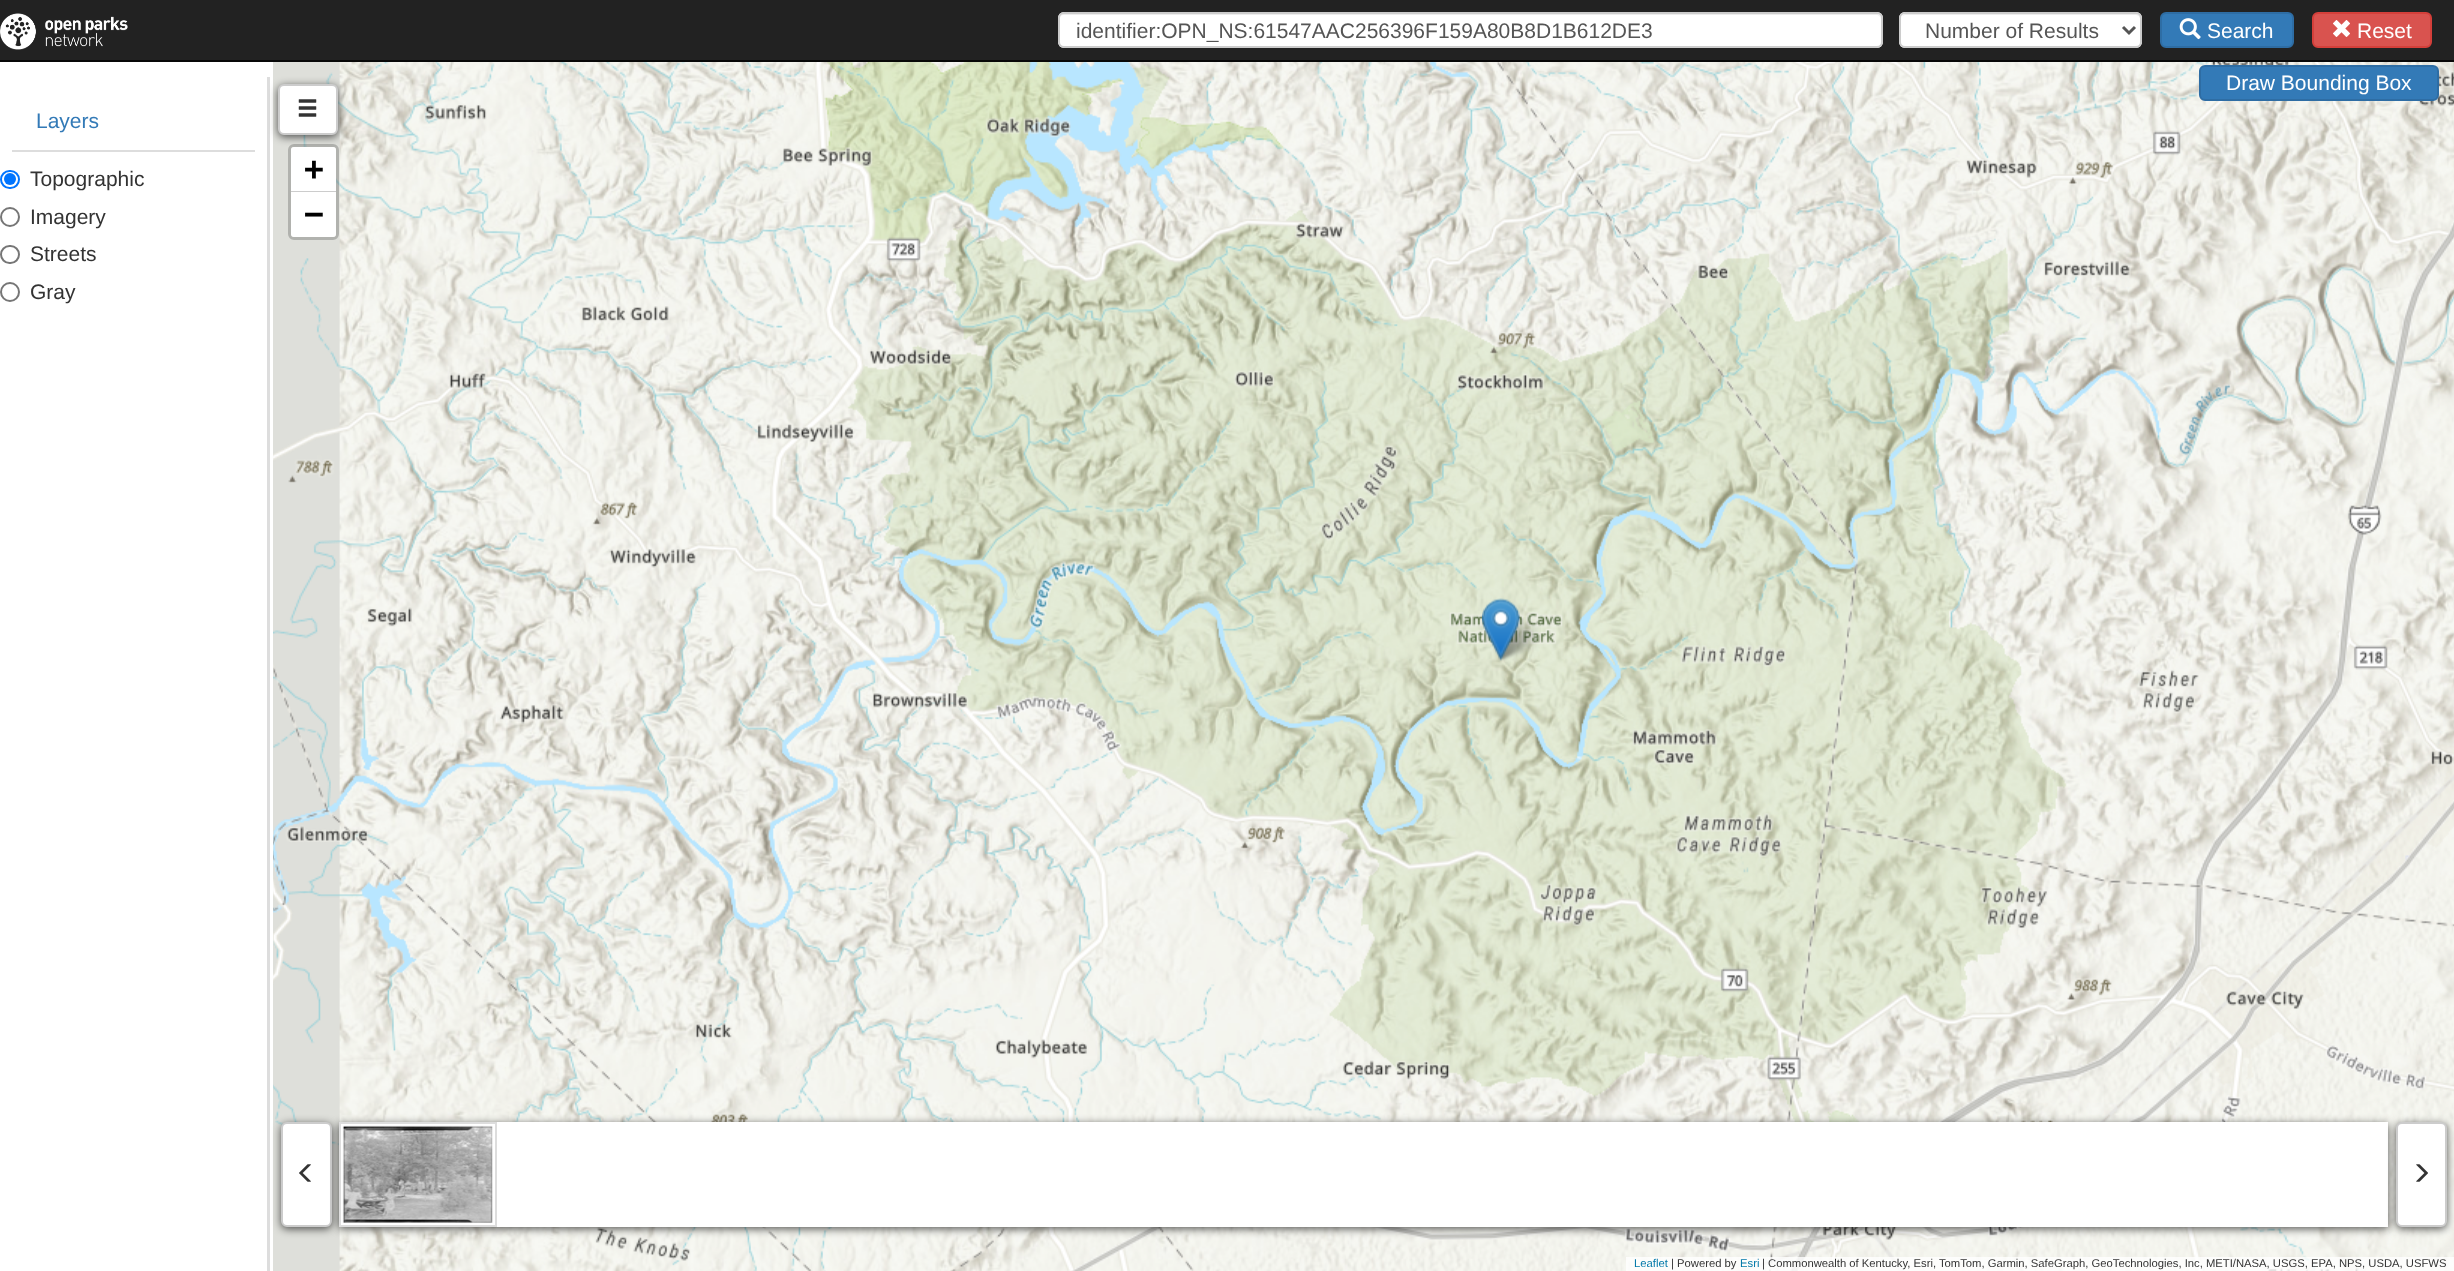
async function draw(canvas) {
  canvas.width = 2454;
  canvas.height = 1271;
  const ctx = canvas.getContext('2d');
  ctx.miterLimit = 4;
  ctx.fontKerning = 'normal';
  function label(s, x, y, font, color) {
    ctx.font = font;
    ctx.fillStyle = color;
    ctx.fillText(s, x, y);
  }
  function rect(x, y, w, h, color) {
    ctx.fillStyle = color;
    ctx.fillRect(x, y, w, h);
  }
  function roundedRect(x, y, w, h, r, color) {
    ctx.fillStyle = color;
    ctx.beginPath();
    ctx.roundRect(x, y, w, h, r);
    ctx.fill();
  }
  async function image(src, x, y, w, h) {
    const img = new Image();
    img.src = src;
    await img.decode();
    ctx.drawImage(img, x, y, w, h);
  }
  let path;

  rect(0, 0, 2454, 1271, '#fff');
  rect(0, 0, 2454, 60, '#222');
  rect(0, 60, 2454, 2, '#080808');
  await image('assets/img1.png', 0, 13, 128, 37);
  roundedRect(1058, 12, 825, 36, 6, '#fff');
  ctx.fillStyle = '#ececec';
  path = new Path2D('M1064 15H1876C1879 15 1881 17 1881 20V19C1881 16 1879 14 1876 14H1064C1061 14 1059 16 1059 19V20C1059 17 1061 15 1064 15Z');
  ctx.fill(path);
  ctx.beginPath();
  ctx.roundRect(1059, 13, 823, 34, 5);
  ctx.strokeStyle = '#ccc';
  ctx.lineWidth = 2;
  ctx.stroke();
  ctx.save();
  ctx.beginPath();
  ctx.rect(1077, 18, 786, 24);
  ctx.clip();
  label('identifier:OPN_NS:61547AAC256396F159A80B8D1B612DE3', 1076, 38, '21px Liberation Sans', '#555');
  ctx.restore();
  roundedRect(1899, 12, 243, 36, 6, '#fff');
  ctx.fillStyle = '#ececec';
  path = new Path2D('M1905 15H2136C2142 15 2140 25 2140 28V45C2141 44 2141 43 2141 42V19C2141 16 2139 14 2136 14H1906C1904 14 1903 15 1902 16Z');
  ctx.fill(path);
  ctx.beginPath();
  ctx.roundRect(1900, 13, 241, 34, 5);
  ctx.stroke();
  path = new Path2D('M2123 27L2129 33L2135 27');
  ctx.strokeStyle = '#555';
  ctx.lineWidth = 3;
  ctx.stroke(path);
  label('Number of Results', 1925, 38, '21px Liberation Sans', '#555');
  ctx.fillStyle = '#337ab7';
  ctx.beginPath();
  ctx.roundRect(2161, 13, 132, 34, 5);
  ctx.fill();
  ctx.strokeStyle = '#2e6da4';
  ctx.lineWidth = 2;
  ctx.stroke();
  await image('assets/img2.png', 2179, 18, 22, 22);
  label('Search', 2207, 38, '21px Liberation Sans', '#fff');
  ctx.fillStyle = '#d9534f';
  ctx.beginPath();
  ctx.roundRect(2313, 13, 118, 34, 5);
  ctx.fill();
  ctx.strokeStyle = '#d43f3a';
  ctx.stroke();
  await image('assets/img3.png', 2333, 20, 17, 17);
  label('Reset', 2357, 38, '21px Liberation Sans', '#fff');
  rect(273, 62, 67, 1209, '#ddd');
  await image('assets/img5.png', 273, 62, 2181, 1209);
  ctx.fillStyle = '#000000a6';
  ctx.filter = 'blur(4px)';
  ctx.beginPath();
  ctx.roundRect(281, 1124, 51, 105, 6);
  ctx.fill();
  ctx.filter = 'none';
  rect(267, 77, 3, 1194, '#ddd');
  rect(12, 150, 243, 2, '#ddd');
  label('Layers', 36, 128, '21px Liberation Sans', '#337ab7');
  ctx.beginPath();
  ctx.roundRect(1, 171, 18, 17, 8.5);
  ctx.strokeStyle = '#0075ff';
  ctx.stroke();
  ctx.fillStyle = '#0075ff';
  ctx.beginPath();
  ctx.arc(10, 179, 6, 0, 2 * Math.PI);
  ctx.fill();
  label('Topographic', 30, 186, '21px Liberation Sans', '#333');
  ctx.beginPath();
  ctx.arc(10, 217, 9, 0, 2 * Math.PI);
  ctx.strokeStyle = '#767676';
  ctx.stroke();
  label('Imagery', 30, 224, '21px Liberation Sans', '#333');
  ctx.beginPath();
  ctx.roundRect(1, 246, 18, 17, 8.5);
  ctx.stroke();
  label('Streets', 30, 261, '21px Liberation Sans', '#333');
  ctx.beginPath();
  ctx.arc(10, 292, 9, 0, 2 * Math.PI);
  ctx.stroke();
  label('Gray', 30, 299, '21px Liberation Sans', '#333');
  ctx.beginPath();
  ctx.roundRect(289.5, 145.5, 48, 93, 4.5);
  ctx.strokeStyle = '#00000033';
  ctx.lineWidth = 3;
  ctx.stroke();
  ctx.fillStyle = '#fff';
  ctx.beginPath();
  ctx.roundRect(291, 147, 45, 45, [3, 3, 0, 0]);
  ctx.fill();
  ctx.fillStyle = '#000000a6';
  ctx.filter = 'blur(4px)';
  ctx.beginPath();
  ctx.roundRect(278, 86, 60, 51, 6);
  ctx.fill();
  ctx.filter = 'none';
  ctx.fillStyle = '#fff';
  ctx.beginPath();
  ctx.roundRect(279, 85, 58, 49, 5);
  ctx.fill();
  ctx.strokeStyle = '#ccc';
  ctx.lineWidth = 2;
  ctx.stroke();
  await image('assets/img4.png', 298, 99, 19, 18);
  await image('assets/img7.png', 1495, 617, 46, 44);
  await image('assets/img6.png', 1482, 598, 38, 63);
  ctx.fillStyle = '#337ab7';
  ctx.beginPath();
  ctx.roundRect(2200, 66, 238, 34, 5);
  ctx.fill();
  ctx.strokeStyle = '#2e6da4';
  ctx.stroke();
  label('Draw Bounding Box', 2226, 90, '21px Liberation Sans', '#fff');
  rect(291, 191, 45, 1, '#ccc');
  label('+', 304, 180, 'bold 33px DejaVu Sans Mono', '#000');
  ctx.fillStyle = '#fff';
  ctx.beginPath();
  ctx.roundRect(291, 192, 45, 45, [0, 0, 3, 3]);
  ctx.fill();
  label('−', 304, 225, 'bold 33px DejaVu Sans Mono', '#000');
  rect(1626, 1257, 828, 14, '#ffffffcc');
  label('Leaflet', 1634, 1267, '11.25px Liberation Sans', '#0078a8');
  label('| Powered by', 1671, 1267, '11.25px Liberation Sans', '#333');
  label('Esri', 1740, 1267, '11.25px Liberation Sans', '#0078a8');
  label('| Commonwealth of Kentucky, Esri, TomTom, Garmin, SafeGraph, GeoTechnologies, Inc, METI/NASA, USGS, EPA, NPS, USDA, USFWS', 1762, 1267, '11.25px Liberation Sans', '#333');
  ctx.fillStyle = '#fff';
  ctx.beginPath();
  ctx.roundRect(282, 1123, 49, 103, 5);
  ctx.fill();
  ctx.strokeStyle = '#ccc';
  ctx.stroke();
  await image('assets/img8.png', 299, 1164, 12, 18);
  ctx.fillStyle = '#000000a6';
  ctx.filter = 'blur(4px)';
  ctx.beginPath();
  ctx.rect(339, 1124, 2049, 105);
  ctx.fill();
  ctx.filter = 'none';
  rect(341, 1122, 2047, 105, '#fff');
  ctx.fillStyle = '#000000a6';
  ctx.filter = 'blur(4px)';
  ctx.beginPath();
  ctx.roundRect(2396, 1124, 51, 105, 6);
  ctx.fill();
  ctx.filter = 'none';
  ctx.fillStyle = '#fff';
  ctx.beginPath();
  ctx.roundRect(2397, 1123, 49, 103, 5);
  ctx.fill();
  ctx.stroke();
  await image('assets/img9.png', 2416, 1164, 12, 18);
  ctx.strokeStyle = '#ddd';
  ctx.strokeRect(340, 1123, 156, 103);
  await image('assets/img10.png', 342, 1125, 151, 98);
}

draw(document.querySelector('canvas'));
